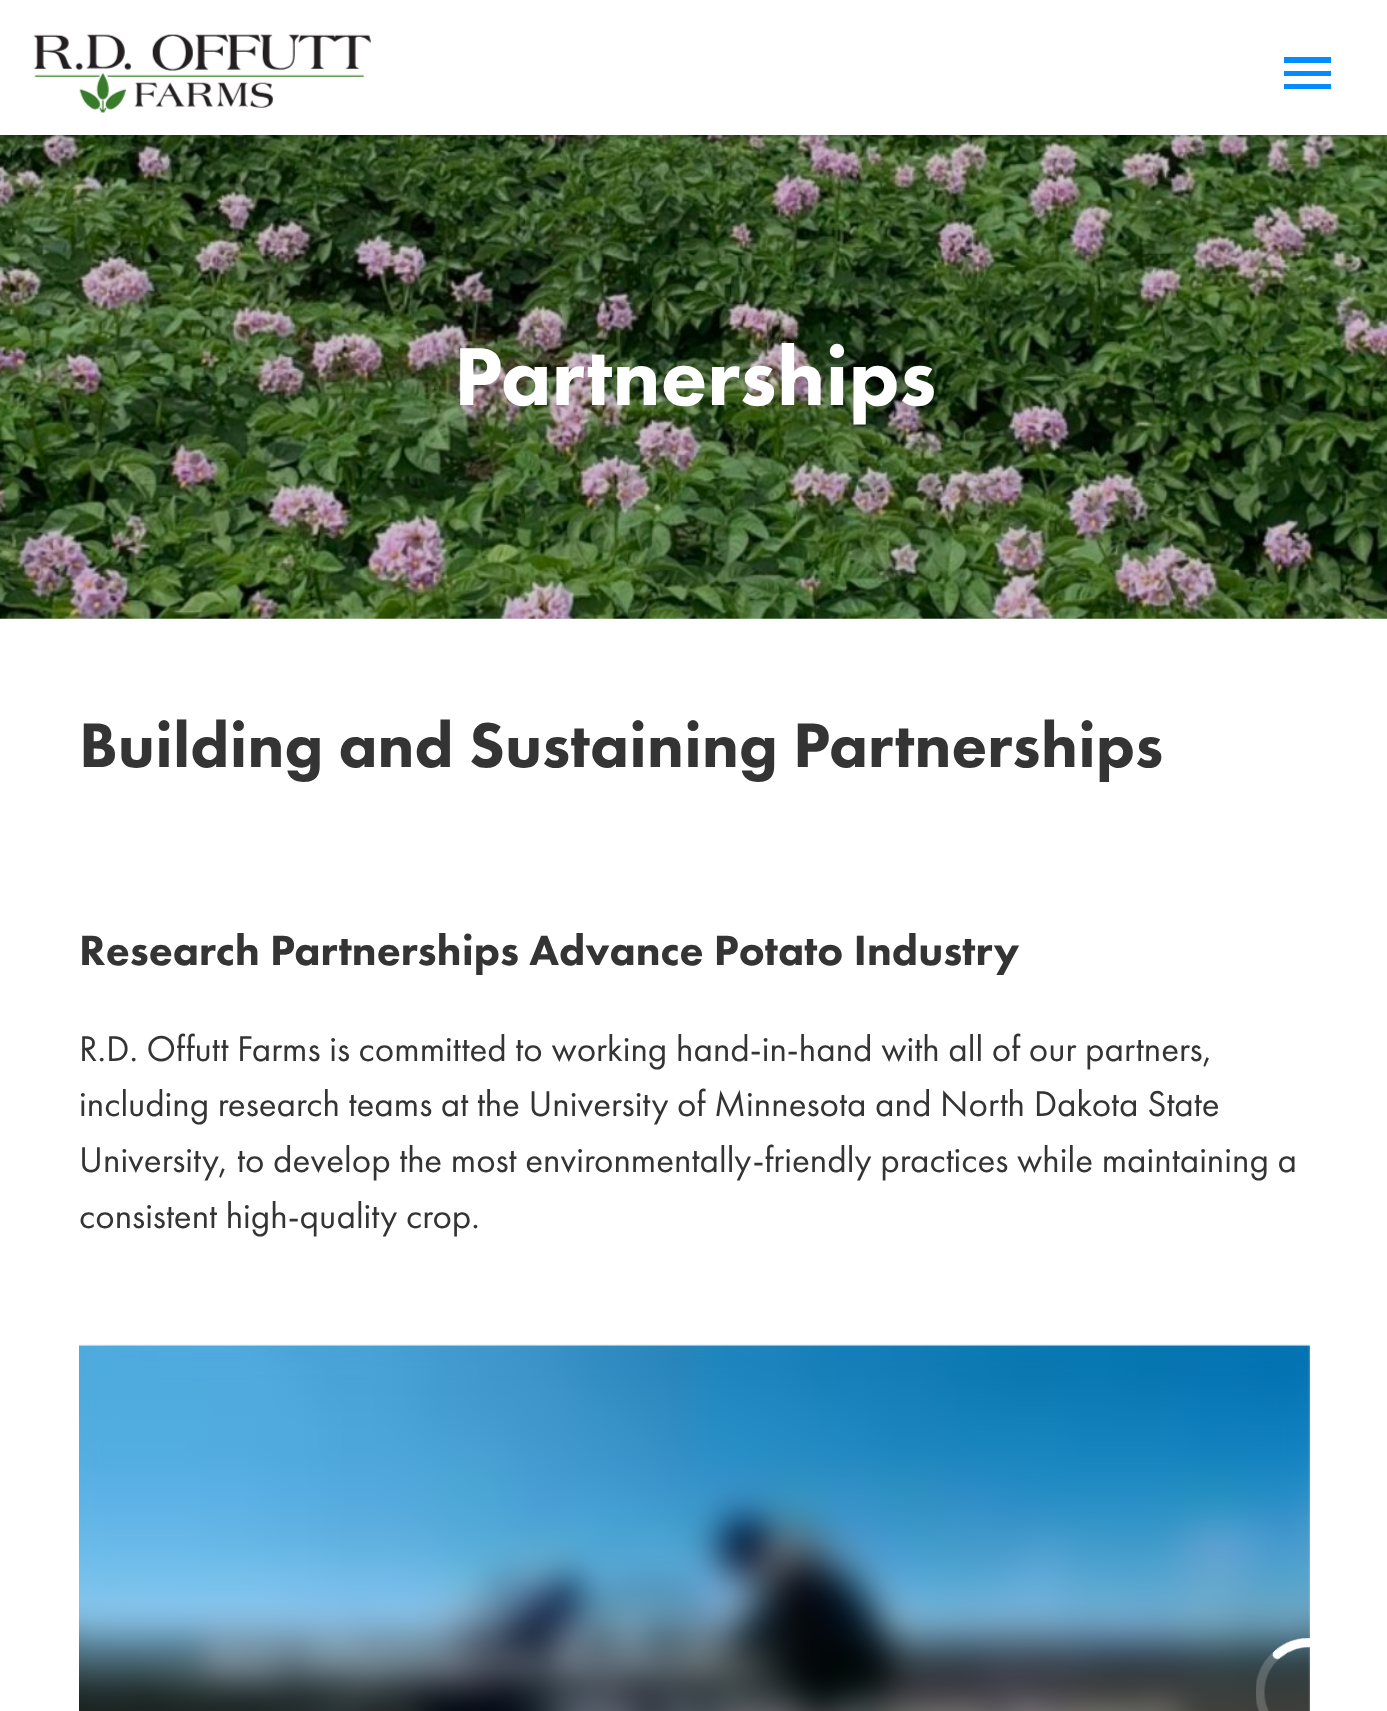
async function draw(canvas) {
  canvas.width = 1387;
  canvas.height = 1711;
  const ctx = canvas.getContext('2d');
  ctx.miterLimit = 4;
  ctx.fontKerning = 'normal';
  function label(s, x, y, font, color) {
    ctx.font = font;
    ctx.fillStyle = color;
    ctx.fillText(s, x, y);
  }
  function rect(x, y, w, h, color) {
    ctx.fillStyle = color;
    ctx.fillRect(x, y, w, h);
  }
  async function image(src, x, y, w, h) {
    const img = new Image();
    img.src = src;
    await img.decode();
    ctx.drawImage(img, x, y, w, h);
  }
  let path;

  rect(0, 0, 1387, 1711, '#fff');
  await image('assets/img2.png', 0, 135, 1387, 484);
  ctx.fillStyle = '#00000033';
  ctx.filter = 'blur(1px)';
  ctx.beginPath();
  ctx.rect(2, 2, 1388, 135);
  ctx.fill();
  ctx.filter = 'none';
  rect(0, 0, 1387, 135, '#fff');
  await image('assets/img1.png', 33, 34, 338, 79);
  ctx.fillStyle = '#028cff';
  path = new Path2D('M1284 57H1331V63H1284ZM1284 71H1331V76H1284ZM1284 84H1331V89H1284Z');
  ctx.fill(path);
  label('Partnerships', 454, 405, '900 85px Futura PT', '#fff');
  label('Building and Sustaining Partnerships', 79, 767, '900 65.25px Futura PT', '#343434');
  label('Research Partnerships Advance Potato Industry', 79, 965, '900 43.9px Futura PT', '#343434');
  label('R.D. Offutt Farms is committed to working hand-in-hand with all of our partners,', 79, 1061, '37.1px Futura PT', '#343434');
  label('including research teams at the University of Minnesota and North Dakota State', 79, 1116, '37.1px Futura PT', '#343434');
  label('University, to develop the most environmentally-friendly practices while maintaining a', 79, 1172, '37.1px Futura PT', '#343434');
  label('consistent high-quality crop.', 79, 1228, '37.1px Futura PT', '#343434');
  await image('assets/img3.png', 79, 1344, 1231, 367);
}

draw(document.querySelector('canvas'));
